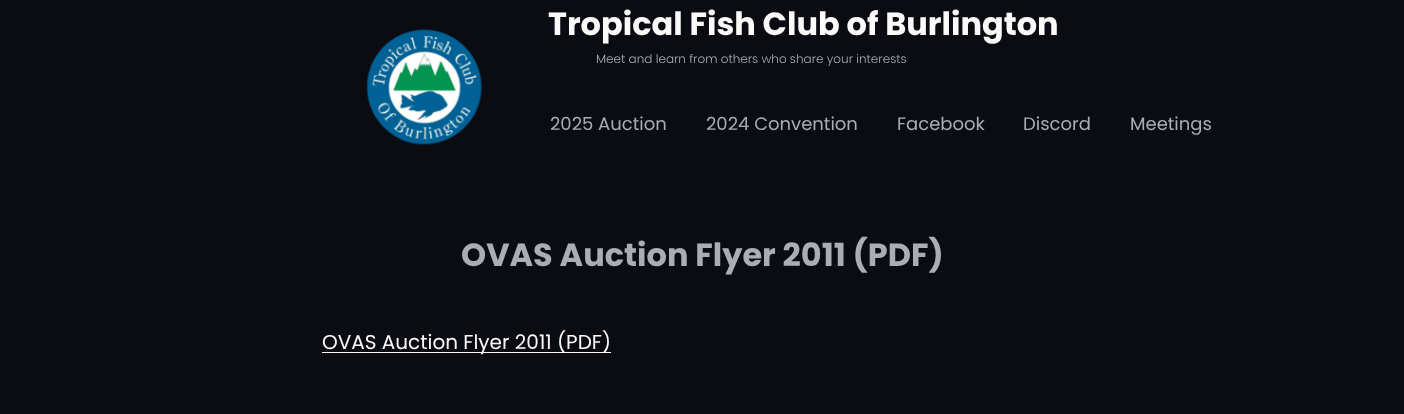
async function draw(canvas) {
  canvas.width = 1404;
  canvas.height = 414;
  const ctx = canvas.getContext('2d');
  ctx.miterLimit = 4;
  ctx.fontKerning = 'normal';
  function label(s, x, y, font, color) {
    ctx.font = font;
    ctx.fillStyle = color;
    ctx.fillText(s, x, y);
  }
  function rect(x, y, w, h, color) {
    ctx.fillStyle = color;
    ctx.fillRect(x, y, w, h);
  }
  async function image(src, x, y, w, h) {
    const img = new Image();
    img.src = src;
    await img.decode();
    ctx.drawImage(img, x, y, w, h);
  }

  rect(0, 0, 1404, 414, '#0a0c11');
  await image('assets/img1.png', 366, 29, 117, 116);
  label('Tropical Fish Club of Burlington', 548, 35, 'bold 32px Poppins', '#fafafa');
  label('Meet and learn from others who share your interests', 596, 63, '300 12px Poppins', '#abadb3');
  label('2025 Auction', 550, 130, '18px Poppins', '#abadb3');
  label('2024 Convention', 706, 130, '18px Poppins', '#abadb3');
  label('Facebook', 897, 130, '18px Poppins', '#abadb3');
  label('Discord', 1023, 130, '18px Poppins', '#abadb3');
  label('Meetings', 1130, 130, '18px Poppins', '#abadb3');
  label('OVAS Auction Flyer 2011 (PDF)', 461, 266, 'bold 32px Poppins', '#abadb3');
  rect(322, 352, 289, 1, '#fafafa');
  label('OVAS Auction Flyer 2011 (PDF)', 322, 349, '20px Poppins', '#fafafa');
}

draw(document.querySelector('canvas'));
